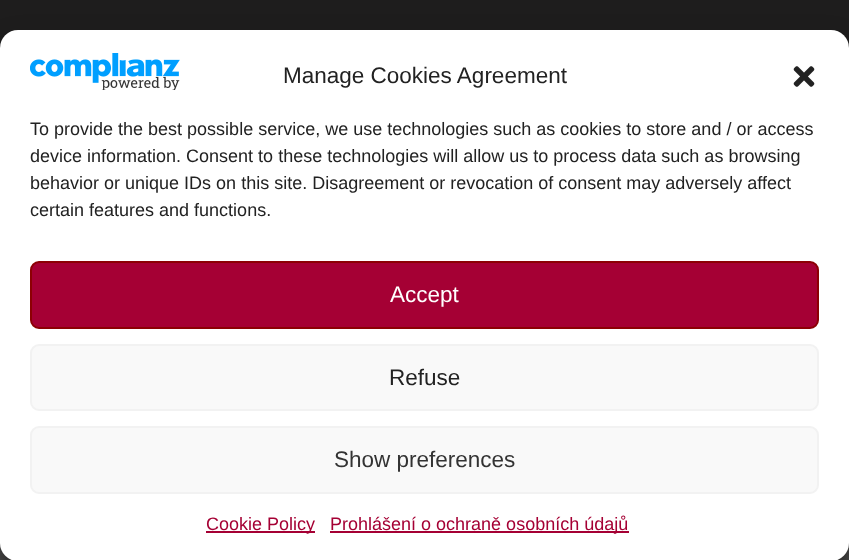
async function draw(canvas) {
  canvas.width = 849;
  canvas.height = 560;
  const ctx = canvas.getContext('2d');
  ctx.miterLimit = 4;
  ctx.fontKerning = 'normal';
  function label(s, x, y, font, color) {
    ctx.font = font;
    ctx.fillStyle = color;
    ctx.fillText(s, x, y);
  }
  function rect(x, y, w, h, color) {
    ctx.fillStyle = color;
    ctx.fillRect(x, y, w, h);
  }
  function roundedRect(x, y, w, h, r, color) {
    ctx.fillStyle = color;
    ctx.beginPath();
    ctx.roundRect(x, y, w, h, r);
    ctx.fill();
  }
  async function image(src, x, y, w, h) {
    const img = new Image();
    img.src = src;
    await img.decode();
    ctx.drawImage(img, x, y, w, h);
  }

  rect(0, 0, 849, 560, '#fff');
  await image('assets/img1.png', 0, 543, 849, 17);
  rect(38, 0, 774, 30, '#1e1d1d');
  rect(0, 0, 38, 48, '#1e1d1d');
  rect(812, 0, 37, 48, '#1e1d1d');
  ctx.fillStyle = '#0000003b';
  ctx.filter = 'blur(4.5px)';
  ctx.beginPath();
  ctx.roundRect(0, 39, 849, 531, 18);
  ctx.fill();
  ctx.filter = 'none';
  ctx.fillStyle = '#00000030';
  ctx.filter = 'blur(15px)';
  ctx.beginPath();
  ctx.roundRect(0, 45, 849, 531, 18);
  ctx.fill();
  ctx.filter = 'none';
  roundedRect(0, 30, 849, 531, 18, '#fff');
  await image('assets/img2.png', 30, 53, 150, 37);
  label('Manage Cookies Agreement', 283, 83, '22.5px Liberation Sans', '#222');
  await image('assets/img3.png', 793, 66, 22, 21);
  label('To provide the best possible service, we use technologies such as cookies to store and / or access', 30, 135, '18px Liberation Sans', '#222');
  label('device information. Consent to these technologies will allow us to process data such as browsing', 30, 162, '18px Liberation Sans', '#222');
  label('behavior or unique IDs on this site. Disagreement or revocation of consent may adversely affect', 30, 189, '18px Liberation Sans', '#222');
  label('certain features and functions.', 30, 216, '18px Liberation Sans', '#222');
  ctx.fillStyle = '#a50034';
  ctx.beginPath();
  ctx.roundRect(31, 262, 787, 66, 8);
  ctx.fill();
  ctx.strokeStyle = '#8c0004';
  ctx.lineWidth = 2;
  ctx.stroke();
  label('Accept', 390, 302, '22.5px Liberation Sans', '#fff');
  ctx.fillStyle = '#f9f9f9';
  ctx.beginPath();
  ctx.roundRect(31, 345, 787, 65, 8);
  ctx.fill();
  ctx.strokeStyle = '#f2f2f2';
  ctx.stroke();
  label('Refuse', 389, 385, '22.5px Liberation Sans', '#222');
  ctx.fillStyle = '#f9f9f9';
  ctx.beginPath();
  ctx.roundRect(31, 427, 787, 66, 8);
  ctx.fill();
  ctx.stroke();
  label('Show preferences', 334, 467, '22.5px Liberation Sans', '#333');
  rect(206, 531, 109, 2, '#a50034');
  label('Cookie Policy', 206, 530, '18px Liberation Sans', '#a50034');
  rect(330, 531, 299, 2, '#a50034');
  label('Prohlášení o ochraně osobních údajů', 330, 530, '18px Liberation Sans', '#a50034');
}

draw(document.querySelector('canvas'));
